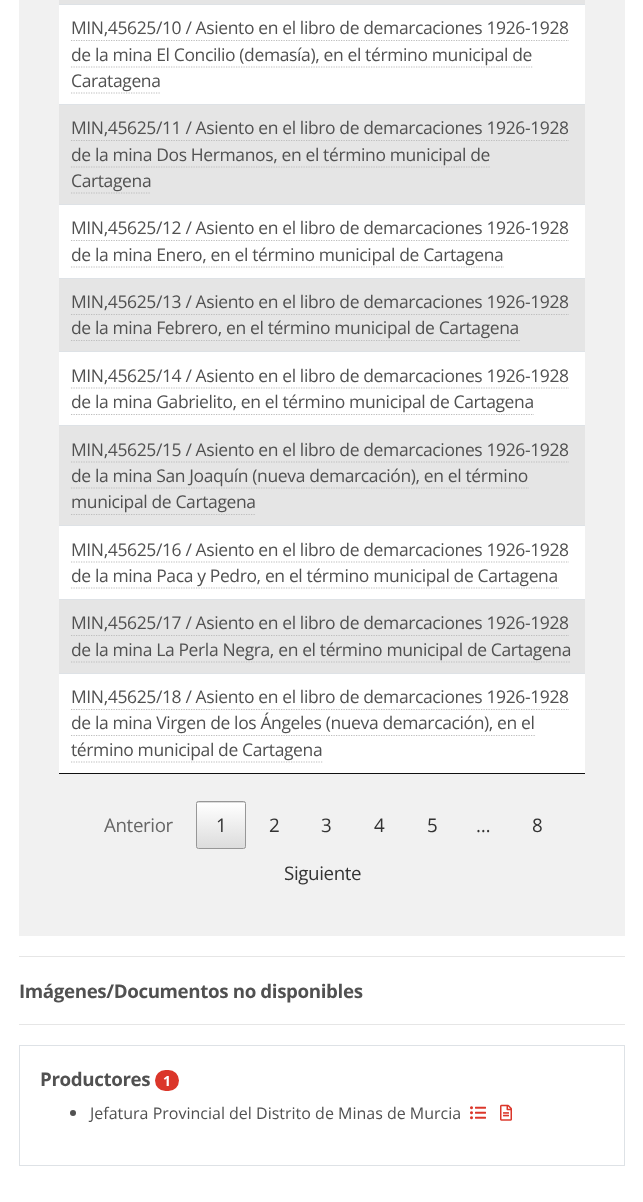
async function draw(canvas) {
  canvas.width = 643;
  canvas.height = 1202;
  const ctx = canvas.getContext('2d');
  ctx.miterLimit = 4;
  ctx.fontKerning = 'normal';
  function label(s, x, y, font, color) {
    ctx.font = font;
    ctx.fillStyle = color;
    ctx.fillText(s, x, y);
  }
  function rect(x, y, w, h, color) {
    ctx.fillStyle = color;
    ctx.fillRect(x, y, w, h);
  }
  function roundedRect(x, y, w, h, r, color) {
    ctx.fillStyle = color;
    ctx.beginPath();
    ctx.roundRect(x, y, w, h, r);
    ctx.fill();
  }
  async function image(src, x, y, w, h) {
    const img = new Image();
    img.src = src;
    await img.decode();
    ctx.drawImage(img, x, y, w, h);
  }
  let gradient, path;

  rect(0, 0, 643, 1202, '#fff');
  rect(19, 0, 606, 936, '#f1f1f1');
  rect(59, 773, 526, 1, '#111');
  rect(59, 0, 526, 4, '#e5e5e5');
  rect(59, 5, 526, 99, '#fff');
  rect(59, 4, 526, 1, '#dee2e6');
  ctx.letterSpacing = '-0.38px';
  label('MIN,45625/10 / Asiento en el libro de demarcaciones 1926-1928', 71, 34, '17.5px Open Sans', '#515151');
  path = new Path2D('M71 40.5H569');
  ctx.strokeStyle = '#bdbdbd';
  ctx.lineWidth = 1.2;
  ctx.setLineDash([1.25, 1.25]);
  ctx.stroke(path);
  label('de la mina El Concilio (demasía), en el término municipal de', 71, 61, '17.5px Open Sans', '#515151');
  path = new Path2D('M71 67H532.5');
  ctx.stroke(path);
  label('Caratagena', 71, 87, '17.5px Open Sans', '#515151');
  path = new Path2D('M71 93H161');
  ctx.stroke(path);
  rect(59, 105, 526, 99, '#e5e5e5');
  rect(59, 104, 526, 1, '#dee2e6');
  label('MIN,45625/11 / Asiento en el libro de demarcaciones 1926-1928', 71, 134, '17.5px Open Sans', '#515151');
  path = new Path2D('M71 140.5H569');
  ctx.stroke(path);
  label('de la mina Dos Hermanos, en el término municipal de', 71, 161, '17.5px Open Sans', '#515151');
  path = new Path2D('M71 167H490');
  ctx.stroke(path);
  label('Cartagena', 71, 187, '17.5px Open Sans', '#515151');
  path = new Path2D('M71 193H151');
  ctx.stroke(path);
  rect(59, 205, 526, 73, '#fff');
  rect(59, 204, 526, 1, '#dee2e6');
  label('MIN,45625/12 / Asiento en el libro de demarcaciones 1926-1928', 71, 234, '17.5px Open Sans', '#515151');
  path = new Path2D('M71 240.5H569');
  ctx.stroke(path);
  label('de la mina Enero, en el término municipal de Cartagena', 71, 261, '17.5px Open Sans', '#515151');
  path = new Path2D('M71 267H504');
  ctx.stroke(path);
  rect(59, 279, 526, 72, '#e5e5e5');
  rect(59, 278, 526, 1, '#dee2e6');
  label('MIN,45625/13 / Asiento en el libro de demarcaciones 1926-1928', 71, 308, '17.5px Open Sans', '#515151');
  path = new Path2D('M71 314.5H569');
  ctx.stroke(path);
  label('de la mina Febrero, en el término municipal de Cartagena', 71, 334, '17.5px Open Sans', '#515151');
  path = new Path2D('M71 340.5H520');
  ctx.stroke(path);
  rect(59, 352, 526, 73, '#fff');
  rect(59, 351, 526, 1, '#dee2e6');
  label('MIN,45625/14 / Asiento en el libro de demarcaciones 1926-1928', 71, 382, '17.5px Open Sans', '#515151');
  path = new Path2D('M71 388H569');
  ctx.stroke(path);
  label('de la mina Gabrielito, en el término municipal de Cartagena', 71, 408, '17.5px Open Sans', '#515151');
  path = new Path2D('M71 414.5H534');
  ctx.stroke(path);
  rect(59, 426, 526, 99, '#e5e5e5');
  rect(59, 425, 526, 1, '#dee2e6');
  label('MIN,45625/15 / Asiento en el libro de demarcaciones 1926-1928', 71, 456, '17.5px Open Sans', '#515151');
  path = new Path2D('M71 462H569');
  ctx.stroke(path);
  label('de la mina San Joaquín (nueva demarcación), en el término', 71, 482, '17.5px Open Sans', '#515151');
  path = new Path2D('M71 488H529');
  ctx.stroke(path);
  label('municipal de Cartagena', 71, 508, '17.5px Open Sans', '#515151');
  path = new Path2D('M71 514.5H256');
  ctx.stroke(path);
  rect(59, 526, 526, 73, '#fff');
  rect(59, 525, 526, 1, '#dee2e6');
  label('MIN,45625/16 / Asiento en el libro de demarcaciones 1926-1928', 71, 556, '17.5px Open Sans', '#515151');
  path = new Path2D('M71 562H569');
  ctx.stroke(path);
  label('de la mina Paca y Pedro, en el término municipal de Cartagena', 71, 582, '17.5px Open Sans', '#515151');
  path = new Path2D('M71 588H559');
  ctx.stroke(path);
  rect(59, 600, 526, 73, '#e5e5e5');
  rect(59, 599, 526, 1, '#dee2e6');
  label('MIN,45625/17 / Asiento en el libro de demarcaciones 1926-1928', 71, 629, '17.5px Open Sans', '#515151');
  path = new Path2D('M71 635.5H569');
  ctx.stroke(path);
  label('de la mina La Perla Negra, en el término municipal de Cartagena', 71, 656, '17.5px Open Sans', '#515151');
  path = new Path2D('M71 662H571');
  ctx.stroke(path);
  rect(59, 674, 526, 99, '#fff');
  rect(59, 673, 526, 1, '#dee2e6');
  label('MIN,45625/18 / Asiento en el libro de demarcaciones 1926-1928', 71, 703, '17.5px Open Sans', '#515151');
  path = new Path2D('M71 709.5H569');
  ctx.stroke(path);
  label('de la mina Virgen de los Ángeles (nueva demarcación), en el', 71, 729, '17.5px Open Sans', '#515151');
  path = new Path2D('M71 735.5H535');
  ctx.stroke(path);
  label('término municipal de Cartagena', 71, 756, '17.5px Open Sans', '#515151');
  path = new Path2D('M71 762H322.5');
  ctx.stroke(path);
  label('Anterior', 104, 832, '18.75px Open Sans', '#666');
  ctx.save();
  ctx.beginPath();
  ctx.roundRect(196, 801, 50, 48, 2.5);
  ctx.clip();
  gradient = ctx.createLinearGradient(221, 758, 221, 803);
  gradient.addColorStop(0, '#fff');
  gradient.addColorStop(1, '#dcdcdc');
  ctx.fillStyle = gradient;
  ctx.fillRect(196, 801, 50, 2);
  ctx.restore();
  gradient = ctx.createLinearGradient(221, 803, 221, 848);
  gradient.addColorStop(0, '#fff');
  gradient.addColorStop(1, '#dcdcdc');
  ctx.fillStyle = gradient;
  ctx.fillRect(196, 803, 50, 45);
  ctx.beginPath();
  ctx.roundRect(196.5, 801.5, 49, 47, 2);
  ctx.strokeStyle = '#979797';
  ctx.lineWidth = 1;
  ctx.setLineDash([]);
  ctx.stroke();
  label('1', 216, 832, '18.75px Open Sans', '#333');
  label('2', 269, 832, '18.75px Open Sans', '#333');
  label('3', 321, 832, '18.75px Open Sans', '#333');
  label('4', 374, 832, '18.75px Open Sans', '#333');
  label('5', 427, 832, '18.75px Open Sans', '#333');
  label('…', 476, 832, '18.75px Open Sans', '#333');
  label('8', 532, 832, '18.75px Open Sans', '#333');
  label('Siguiente', 284, 880, '18.75px Open Sans', '#333');
  rect(19, 956, 606, 1, '#e6e6e6');
  label('Imágenes/Documentos no disponibles', 19, 998, 'bold 18.75px Open Sans', '#515151');
  rect(19, 1024, 606, 1, '#e6e6e6');
  ctx.strokeStyle = '#dee2e6';
  ctx.strokeRect(19.5, 1045.5, 605, 120);
  label('Productores', 40, 1086, 'bold 18.75px Open Sans', '#515151');
  roundedRect(155, 1070, 24, 21, 10.5, '#db362a');
  label('1', 163, 1086, 'bold 14px Open Sans', '#fff');
  ctx.fillStyle = '#515151';
  ctx.beginPath();
  ctx.arc(73, 1113, 3, 0, 2 * Math.PI);
  ctx.fill();
  ctx.letterSpacing = '0px';
  label('Jefatura Provincial del Distrito de Minas de Murcia', 90, 1119, '16px Open Sans', '#515151');
  await image('assets/img1.png', 470, 1106, 16, 14);
  await image('assets/img2.png', 500, 1104, 12, 17);
}

draw(document.querySelector('canvas'));
